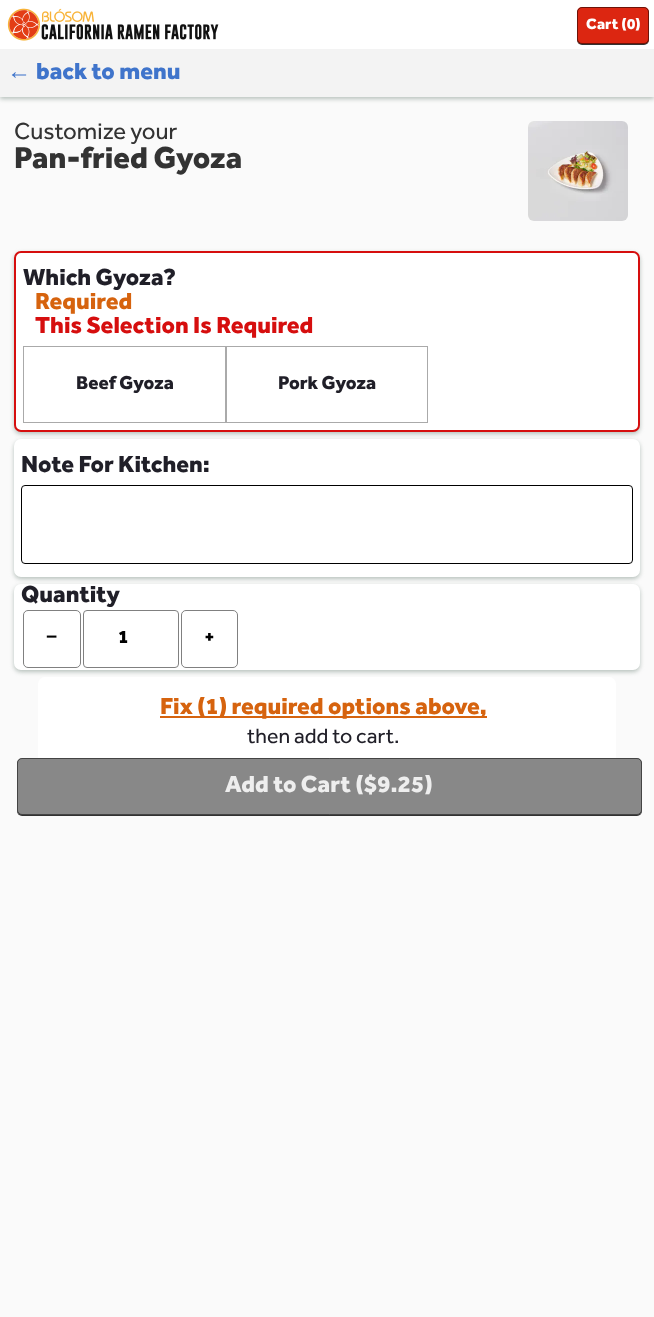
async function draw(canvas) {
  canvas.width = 654;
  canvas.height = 1317;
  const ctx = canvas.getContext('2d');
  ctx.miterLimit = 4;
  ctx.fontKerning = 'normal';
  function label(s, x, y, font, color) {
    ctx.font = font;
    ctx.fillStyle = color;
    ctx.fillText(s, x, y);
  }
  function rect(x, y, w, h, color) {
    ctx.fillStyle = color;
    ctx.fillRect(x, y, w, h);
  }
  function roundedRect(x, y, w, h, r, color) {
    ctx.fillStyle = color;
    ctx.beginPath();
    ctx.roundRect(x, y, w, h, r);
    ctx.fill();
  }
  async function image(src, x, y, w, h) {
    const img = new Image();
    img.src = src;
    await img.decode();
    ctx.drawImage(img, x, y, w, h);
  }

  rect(0, 0, 654, 1317, '#fafafa');
  ctx.fillStyle = '#b7c1bc';
  ctx.filter = 'blur(2px)';
  ctx.beginPath();
  ctx.rect(0, 51, 654, 48);
  ctx.fill();
  ctx.filter = 'none';
  rect(0, 0, 654, 49, '#fff');
  await image('assets/img1.png', 7, 8, 212, 33);
  ctx.fillStyle = '#000000cc';
  ctx.filter = 'blur(0.5px)';
  ctx.beginPath();
  ctx.roundRect(577, 8, 72, 37, 5);
  ctx.fill();
  ctx.filter = 'none';
  roundedRect(577, 7, 72, 37, 5, '#dc2611');
  ctx.beginPath();
  ctx.roundRect(577.5, 7.5, 71, 36, 4.5);
  ctx.strokeStyle = '#00000080';
  ctx.stroke();
  label('Cart (0)', 586, 29, '900 15.5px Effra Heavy', '#fff');
  rect(0, 49, 654, 48, '#f3f3f3');
  label('←', 7, 79, 'bold 24px Liberation Sans', '#3f74cb');
  label('back to menu', 36, 79, '900 24px Effra Heavy', '#3f74cb');
  label('Customize your', 14, 139, '24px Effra', '#333');
  label('Pan-fried Gyoza', 14, 168, '900 31.25px Effra Heavy', '#333');
  await image('assets/img2.png', 528, 121, 100, 100);
  ctx.fillStyle = '#b7c1bc';
  ctx.filter = 'blur(2px)';
  ctx.beginPath();
  ctx.roundRect(14, 253, 626, 181, 7);
  ctx.fill();
  ctx.filter = 'none';
  ctx.fillStyle = '#fff';
  ctx.beginPath();
  ctx.roundRect(15, 252, 624, 179, 6);
  ctx.fill();
  ctx.strokeStyle = '#d60e0e';
  ctx.lineWidth = 2;
  ctx.stroke();
  label('Which Gyoza?', 23, 285, '900 24px Effra Heavy', '#201f28');
  label('Required', 35, 309, '900 24px Effra Heavy', '#d6630e');
  label('This Selection Is Required', 35, 333, '900 24px Effra Heavy', '#d60e0e');
  ctx.strokeStyle = '#aaa';
  ctx.lineWidth = 1;
  ctx.strokeRect(23.5, 346.5, 202, 76);
  label('Beef Gyoza', 76, 389, '900 19.25px Effra Heavy', '#201f28');
  ctx.strokeRect(226.5, 346.5, 201, 76);
  label('Pork Gyoza', 278, 389, '900 19.25px Effra Heavy', '#201f28');
  ctx.fillStyle = '#b7c1bc';
  ctx.filter = 'blur(2px)';
  ctx.beginPath();
  ctx.roundRect(14, 441, 626, 138, 7);
  ctx.fill();
  ctx.filter = 'none';
  roundedRect(14, 439, 626, 138, 7, '#fff');
  label('Note For Kitchen:', 21, 472, '900 24px Effra Heavy', '#201f28');
  ctx.beginPath();
  ctx.roundRect(21.5, 485.5, 611, 78, 3.5);
  ctx.strokeStyle = '#000';
  ctx.stroke();
  ctx.fillStyle = '#b7c1bc';
  ctx.filter = 'blur(2px)';
  ctx.beginPath();
  ctx.roundRect(14, 586, 626, 86, 7);
  ctx.fill();
  ctx.filter = 'none';
  roundedRect(14, 584, 626, 86, 7, '#fff');
  label('Quantity', 21, 602, '900 24px Effra Heavy', '#201f28');
  ctx.beginPath();
  ctx.roundRect(23.5, 610.5, 57, 57, 4.5);
  ctx.strokeStyle = '#808080';
  ctx.stroke();
  label('−', 46, 643, 'bold 19.25px Liberation Sans', '#000');
  ctx.beginPath();
  ctx.roundRect(83.5, 610.5, 95, 57, 3.5);
  ctx.stroke();
  label('1', 118, 643, '900 19.25px Effra Heavy', '#000');
  ctx.beginPath();
  ctx.roundRect(181.5, 610.5, 56, 57, 4.5);
  ctx.stroke();
  label('+', 204, 643, '900 19.25px Effra Heavy', '#000');
  ctx.fillStyle = '#fff';
  ctx.beginPath();
  ctx.roundRect(38, 677, 578, 81, [7, 7, 0, 0]);
  ctx.fill();
  rect(160, 716, 327, 2, '#d6630e');
  label('Fix (1) required options above,', 160, 714, '900 24px Effra Heavy', '#d6630e');
  label('then add to cart.', 247, 743, '21.5px Effra', '#201f28');
  ctx.fillStyle = '#000000cc';
  ctx.filter = 'blur(0.5px)';
  ctx.beginPath();
  ctx.roundRect(17, 759, 625, 57, 5);
  ctx.fill();
  ctx.filter = 'none';
  roundedRect(17, 758, 625, 57, 5, '#888');
  ctx.beginPath();
  ctx.roundRect(17.5, 758.5, 624, 56, 4.5);
  ctx.strokeStyle = '#00000080';
  ctx.stroke();
  label('Add to Cart ($9.25)', 225, 792, '900 24px Effra Heavy', '#eee');
}

draw(document.querySelector('canvas'));
